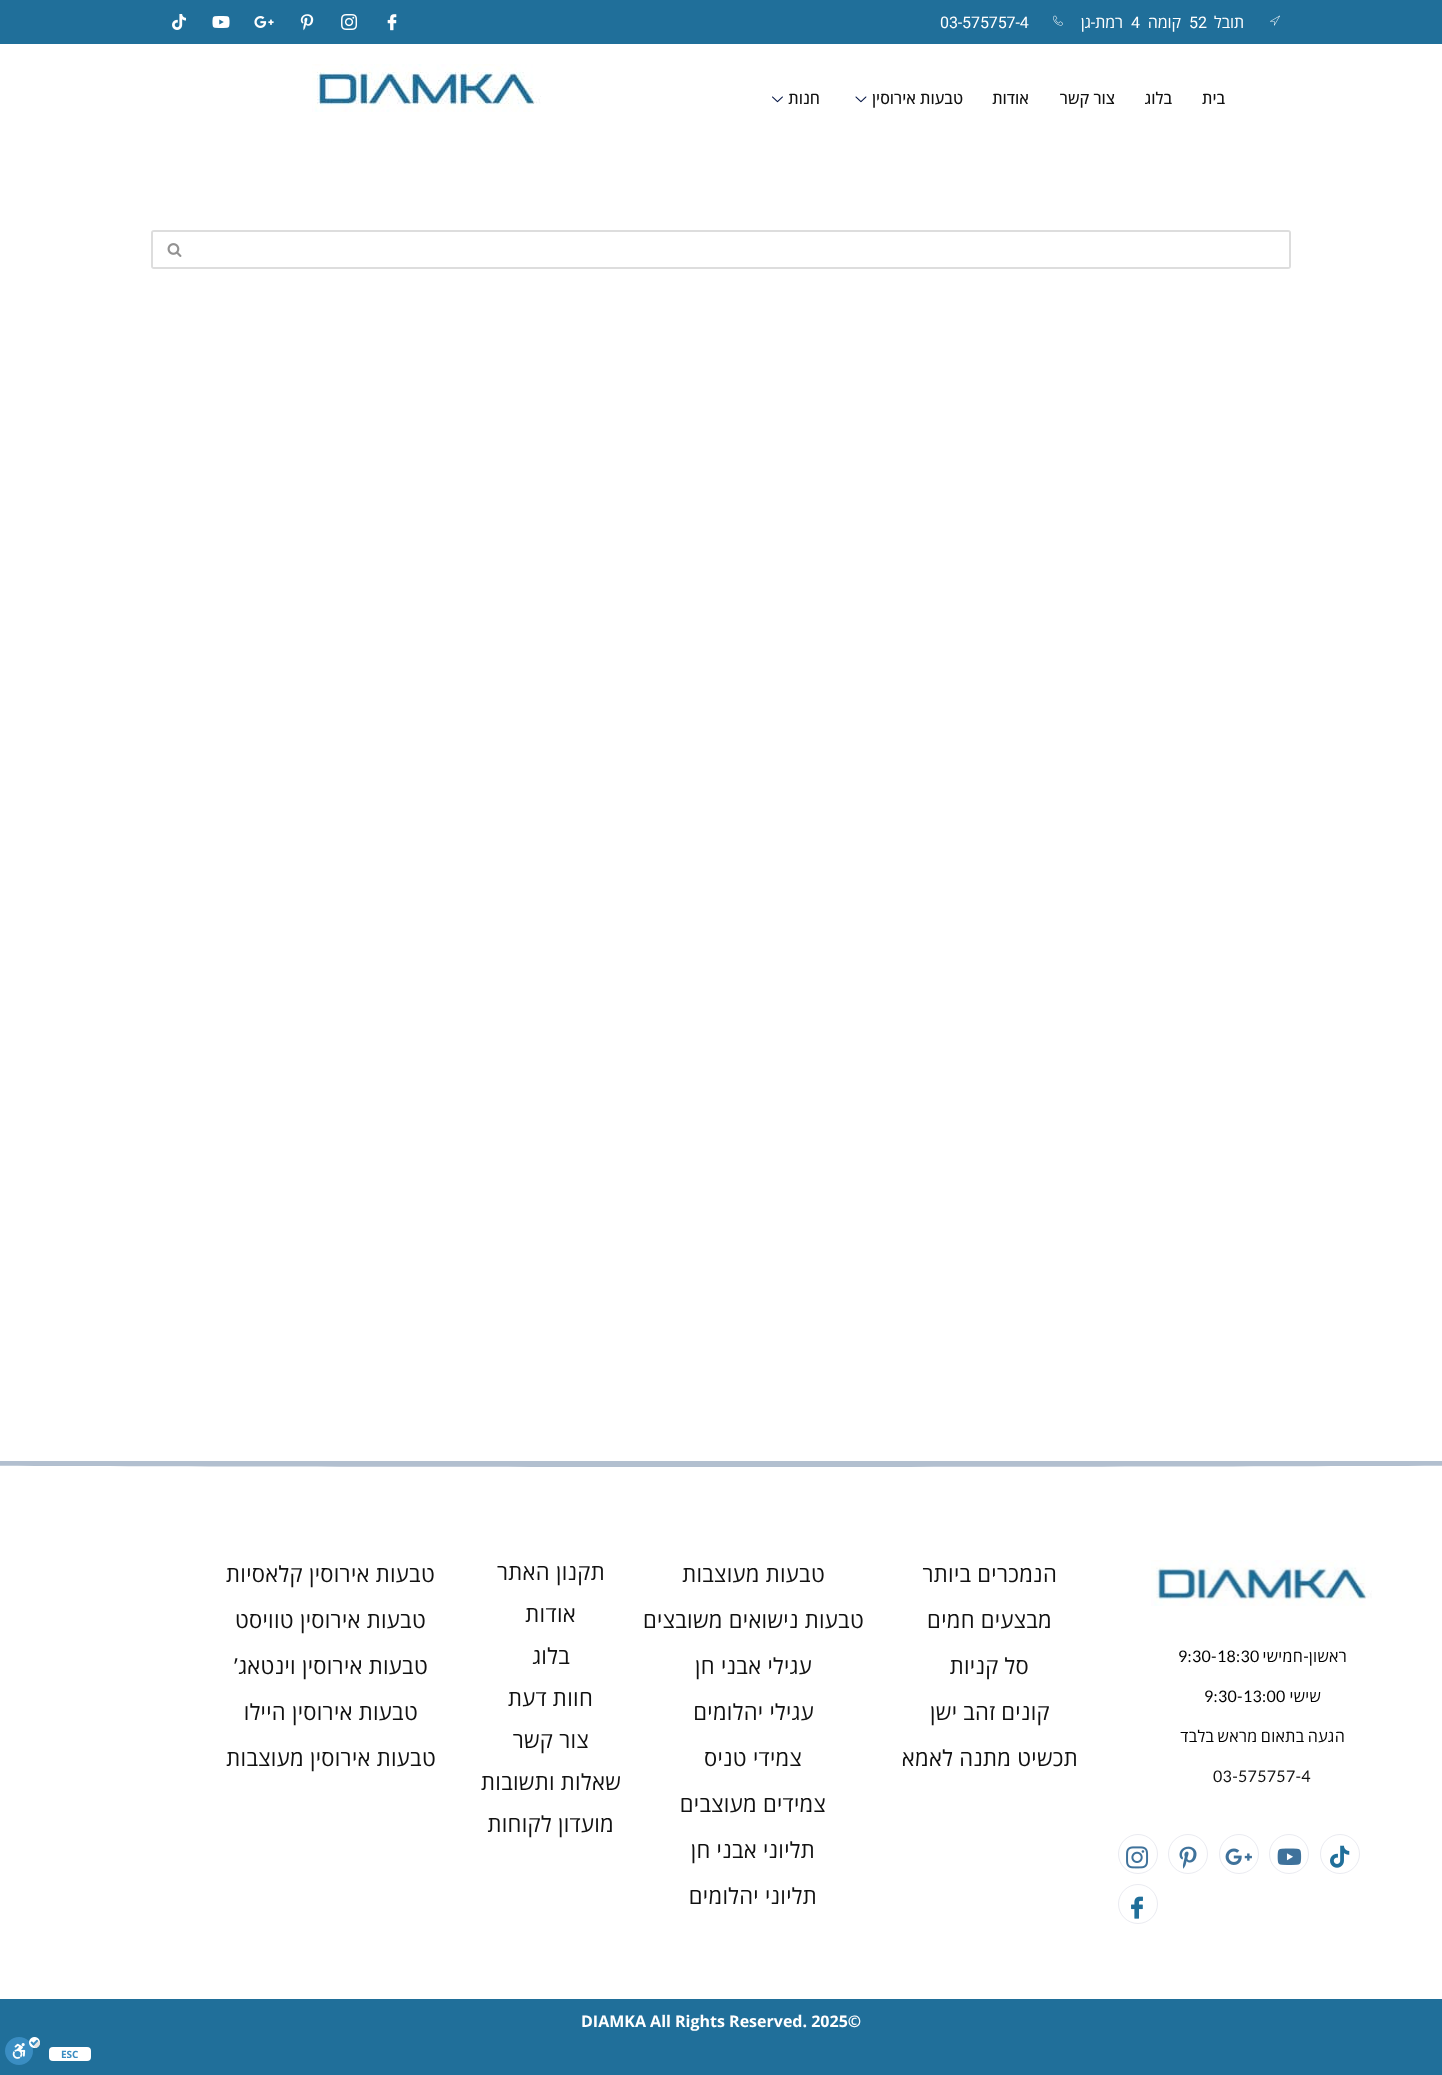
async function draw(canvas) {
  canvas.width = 1442;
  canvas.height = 2075;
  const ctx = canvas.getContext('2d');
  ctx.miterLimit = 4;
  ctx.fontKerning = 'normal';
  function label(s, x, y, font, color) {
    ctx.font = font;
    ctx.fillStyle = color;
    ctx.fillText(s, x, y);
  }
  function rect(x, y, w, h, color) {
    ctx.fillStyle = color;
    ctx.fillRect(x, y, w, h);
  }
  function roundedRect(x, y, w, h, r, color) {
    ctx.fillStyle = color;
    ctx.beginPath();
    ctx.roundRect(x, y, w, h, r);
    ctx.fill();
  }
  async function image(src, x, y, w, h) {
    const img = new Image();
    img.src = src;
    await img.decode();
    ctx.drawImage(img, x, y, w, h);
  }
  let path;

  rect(0, 0, 1442, 2075, '#fff');
  rect(0, 0, 1442, 44, '#206f9a');
  await image('assets/img1.png', 1270, 15, 10, 11);
  ctx.letterSpacing = '-0.1px';
  ctx.direction = 'rtl';
  label('תובל', 1244, 28, '16px Open Sans', '#fff');
  ctx.direction = 'ltr';
  label('52', 1189, 28, '16px Roboto', '#fff');
  ctx.direction = 'rtl';
  label('קומה', 1181, 28, '16px Open Sans', '#fff');
  ctx.direction = 'ltr';
  label('4', 1131, 28, '16px Roboto', '#fff');
  ctx.direction = 'rtl';
  label('-', 1095, 28, '16px Roboto', '#fff');
  label('רמת', 1123, 28, '16px Open Sans', '#fff');
  label('גן', 1091, 28, '16px Open Sans', '#fff');
  await image('assets/img2.png', 1053, 15, 10, 11);
  ctx.direction = 'ltr';
  label('03-575757-4', 940, 28, '16px Roboto', '#fff');
  await image('assets/img3.png', 387, 14, 10, 17);
  await image('assets/img4.png', 341, 14, 17, 16);
  await image('assets/img5.png', 300, 14, 14, 17);
  await image('assets/img6.png', 254, 16, 20, 12);
  await image('assets/img7.png', 212, 16, 18, 12);
  await image('assets/img8.png', 172, 14, 14, 16);
  ctx.letterSpacing = '0px';
  ctx.direction = 'rtl';
  label('בית', 1225, 104, '500 16px Open Sans', '#111');
  label('בלוג', 1172, 104, '500 16px Open Sans', '#111');
  label('צור קשר', 1115, 104, '500 16px Open Sans', '#111');
  label('אודות', 1029, 104, '500 16px Open Sans', '#111');
  label('טבעות אירוסין', 963, 104, '500 16px Open Sans', '#111');
  await image('assets/img9.png', 855, 96, 12, 7);
  label('חנות', 820, 104, '500 16px Open Sans', '#111');
  await image('assets/img10.png', 772, 96, 11, 7);
  await image('assets/img11.png', 312, 64, 229, 48);
  ctx.fillStyle = '#ddd';
  path = new Path2D('M196 230H1288C1290 230 1291 231 1291 233V266C1291 268 1290 269 1288 269H196ZM196 232H1288C1289 232 1289 232 1289 233V266C1289 267 1289 267 1288 267H196Z');
  ctx.fill(path, 'evenodd');
  path = new Path2D('M154 230H196V269H154C152 269 151 268 151 266V233C151 231 152 230 154 230ZM154 232H196V267H154C153 267 153 267 153 266V233C153 232 153 232 154 232Z');
  ctx.fill(path, 'evenodd');
  await image('assets/img12.png', 167, 243, 15, 14);
  ctx.fillStyle = '#b2bfcf';
  path = new Path2D('M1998 1461H-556C-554 1462-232 1467 721 1467C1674 1467 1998 1462 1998 1461Z');
  ctx.fill(path);
  await image('assets/img13.png', 1151, 1560, 221, 46);
  ctx.letterSpacing = '0.3px';
  label('ראשון', 1347, 1662, '16px Open Sans', '#000');
  label('-', 1309, 1662, '16px Lato', '#000');
  label('חמישי', 1303, 1662, '16px Open Sans', '#000');
  ctx.direction = 'ltr';
  label('9:30-18:30', 1178, 1662, '16px Lato', '#000');
  ctx.direction = 'rtl';
  label('שישי', 1321, 1702, '16px Open Sans', '#000');
  ctx.direction = 'ltr';
  label('9:30-13:00', 1204, 1702, '16px Lato', '#000');
  ctx.wordSpacing = '-1px';
  ctx.direction = 'rtl';
  label('הגעה בתאום מראש בלבד', 1345, 1742, '16px Open Sans', '#000');
  ctx.wordSpacing = '0px';
  ctx.direction = 'ltr';
  label('03-575757-4', 1213, 1782, '16px Lato', '#111');
  ctx.beginPath();
  ctx.arc(1340, 1854, 19.5, 0, 2 * Math.PI);
  ctx.strokeStyle = '#eaebf1';
  ctx.stroke();
  await image('assets/img14.png', 1330, 1845, 20, 23);
  ctx.beginPath();
  ctx.arc(1289, 1854, 19.5, 0, 2 * Math.PI);
  ctx.stroke();
  await image('assets/img15.png', 1277, 1848, 25, 17);
  ctx.beginPath();
  ctx.arc(1239, 1854, 19.5, 0, 2 * Math.PI);
  ctx.stroke();
  await image('assets/img16.png', 1225, 1848, 27, 17);
  ctx.beginPath();
  ctx.arc(1188, 1854, 19.5, 0, 2 * Math.PI);
  ctx.stroke();
  await image('assets/img17.png', 1179, 1846, 18, 23);
  ctx.beginPath();
  ctx.arc(1138, 1854, 19.5, 0, 2 * Math.PI);
  ctx.stroke();
  await image('assets/img18.png', 1126, 1846, 23, 23);
  ctx.beginPath();
  ctx.arc(1138, 1904, 19.5, 0, 2 * Math.PI);
  ctx.stroke();
  await image('assets/img19.png', 1131, 1896, 12, 23);
  ctx.direction = 'rtl';
  label('הנמכרים ביותר', 1057, 1582, '22px Open Sans', '#111');
  label('מבצעים חמים', 1052, 1628, '22px Open Sans', '#111');
  label('סל קניות', 1029, 1674, '22px Open Sans', '#111');
  label('קונים זהב ישן', 1050, 1720, '22px Open Sans', '#111');
  label('תכשיט מתנה לאמא', 1078, 1766, '22px Open Sans', '#111');
  label('טבעות מעוצבות', 825, 1582, '22px Open Sans', '#111');
  label('טבעות נישואים משובצים', 864, 1628, '22px Open Sans', '#111');
  label('עגילי אבני חן', 812, 1674, '22px Open Sans', '#111');
  label('עגילי יהלומים', 814, 1720, '22px Open Sans', '#111');
  label('צמידי טניס', 802, 1766, '22px Open Sans', '#111');
  label('צמידים מעוצבים', 826, 1812, '22px Open Sans', '#111');
  label('תליוני אבני חן', 815, 1858, '22px Open Sans', '#111');
  label('תליוני יהלומים', 817, 1904, '22px Open Sans', '#111');
  label('תקנון האתר', 605, 1580, '22px Open Sans', '#111');
  label('אודות', 576, 1622, '22px Open Sans', '#111');
  label('בלוג', 570, 1664, '22px Open Sans', '#111');
  label('חוות דעת', 593, 1706, '22px Open Sans', '#111');
  label('צור קשר', 589, 1748, '22px Open Sans', '#111');
  label('שאלות ותשובות', 621, 1790, '22px Open Sans', '#111');
  label('מועדון לקוחות', 614, 1832, '22px Open Sans', '#111');
  label('טבעות אירוסין קלאסיות', 435, 1582, '22px Open Sans', '#111');
  label('טבעות אירוסין טוויסט', 426, 1628, '22px Open Sans', '#111');
  label('טבעות אירוסין וינטאג’', 428, 1674, '22px Open Sans', '#111');
  label('טבעות אירוסין היילו', 418, 1720, '22px Open Sans', '#111');
  label('טבעות אירוסין מעוצבות', 436, 1766, '22px Open Sans', '#111');
  rect(0, 1999, 1442, 76, '#206f9a');
  ctx.letterSpacing = '0px';
  ctx.direction = 'ltr';
  label('DIAMKA All Rights Reserved. 2025©', 581, 2027, 'bold 16px Open Sans', '#fff');
  roundedRect(49, 2047, 42, 14, 4, '#fff');
  label('ESC', 61, 2058, 'bold 10px Open Sans', '#3a8dc2');
  await image('assets/img20.png', 5, 2037, 35, 28);
}

draw(document.querySelector('canvas'));
